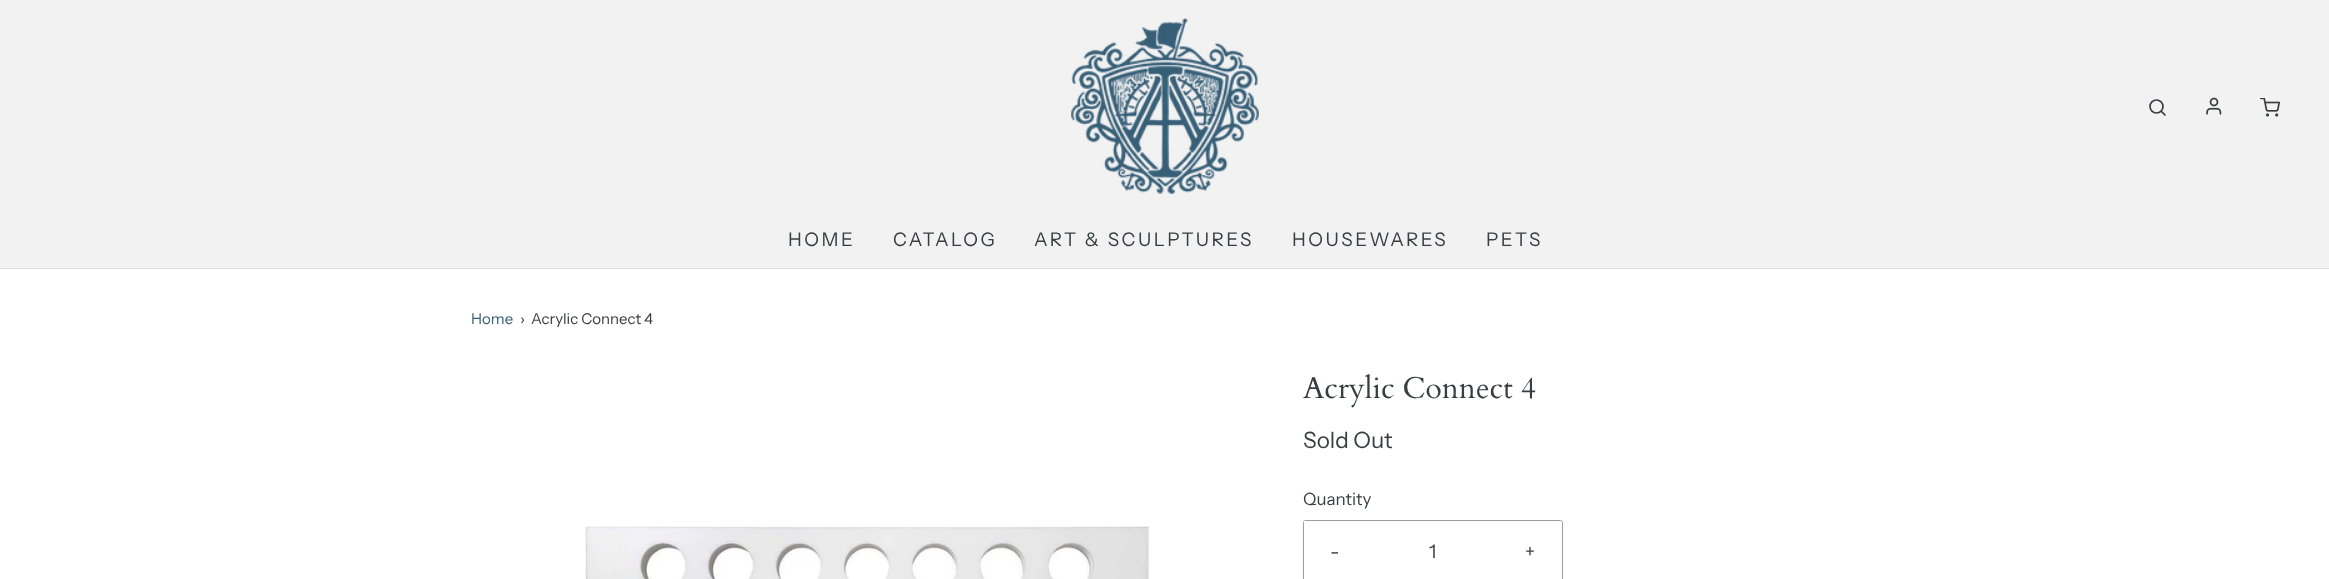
async function draw(canvas) {
  canvas.width = 2329;
  canvas.height = 579;
  const ctx = canvas.getContext('2d');
  ctx.miterLimit = 4;
  ctx.fontKerning = 'normal';
  function label(s, x, y, font, color) {
    ctx.font = font;
    ctx.fillStyle = color;
    ctx.fillText(s, x, y);
  }
  function rect(x, y, w, h, color) {
    ctx.fillStyle = color;
    ctx.fillRect(x, y, w, h);
  }
  async function image(src, x, y, w, h) {
    const img = new Image();
    img.src = src;
    await img.decode();
    ctx.drawImage(img, x, y, w, h);
  }
  let path;

  rect(0, 0, 2329, 579, '#fff');
  rect(0, 0, 2329, 268, '#f2f2f2');
  rect(0, 268, 2329, 1, '#dfe0e0');
  await image('assets/img1.png', 1071, 18, 188, 176);
  ctx.beginPath();
  ctx.arc(2156.5, 106.5, 6.5, 0, 2 * Math.PI);
  ctx.strokeStyle = '#363e42';
  ctx.lineWidth = 1.7;
  ctx.stroke();
  path = new Path2D('M2165 115L2161.5 111.5');
  ctx.lineCap = 'round';
  ctx.lineJoin = 'round';
  ctx.stroke(path);
  await image('assets/img2.png', 2206, 97, 16, 18);
  await image('assets/img3.png', 2260, 98, 20, 19);
  ctx.letterSpacing = '2.5px';
  label('HOME', 788, 246, '18.75px Instrument Sans', '#363e42');
  label('CATALOG', 893, 246, '18.75px Instrument Sans', '#363e42');
  label('ART & SCULPTURES', 1034, 246, '18.75px Instrument Sans', '#363e42');
  label('HOUSEWARES', 1292, 246, '18.75px Instrument Sans', '#363e42');
  label('PETS', 1486, 246, '18.75px Instrument Sans', '#363e42');
  ctx.letterSpacing = '0px';
  label('Home', 471, 324, '15px Instrument Sans', '#375d77');
  label('›', 520, 324, '15px Instrument Sans', '#363e42');
  label('Acrylic Connect 4', 531, 324, '15px Instrument Sans', '#363e42');
  await image('assets/img4.png', 584, 526, 566, 53);
  label('Acrylic Connect 4', 1303, 398, '30px Cardo', '#363e42');
  label('Sold Out', 1303, 448, '22.5px Instrument Sans', '#363e42');
  label('Quantity', 1303, 505, '17px Instrument Sans', '#363e42');
  ctx.beginPath();
  ctx.roundRect(1303.5, 520.5, 259, 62, 2);
  ctx.strokeStyle = '#9b9fa1';
  ctx.lineWidth = 1;
  ctx.lineJoin = 'miter';
  ctx.stroke();
  rect(1304, 521, 1, 1, '#fff');
  label('-', 1330, 558, '18.75px Instrument Sans', '#363e42');
  label('1', 1429, 558, '18.75px Instrument Sans', '#363e42');
  label('+', 1525, 558, '18.75px Instrument Sans', '#363e42');
}

draw(document.querySelector('canvas'));
